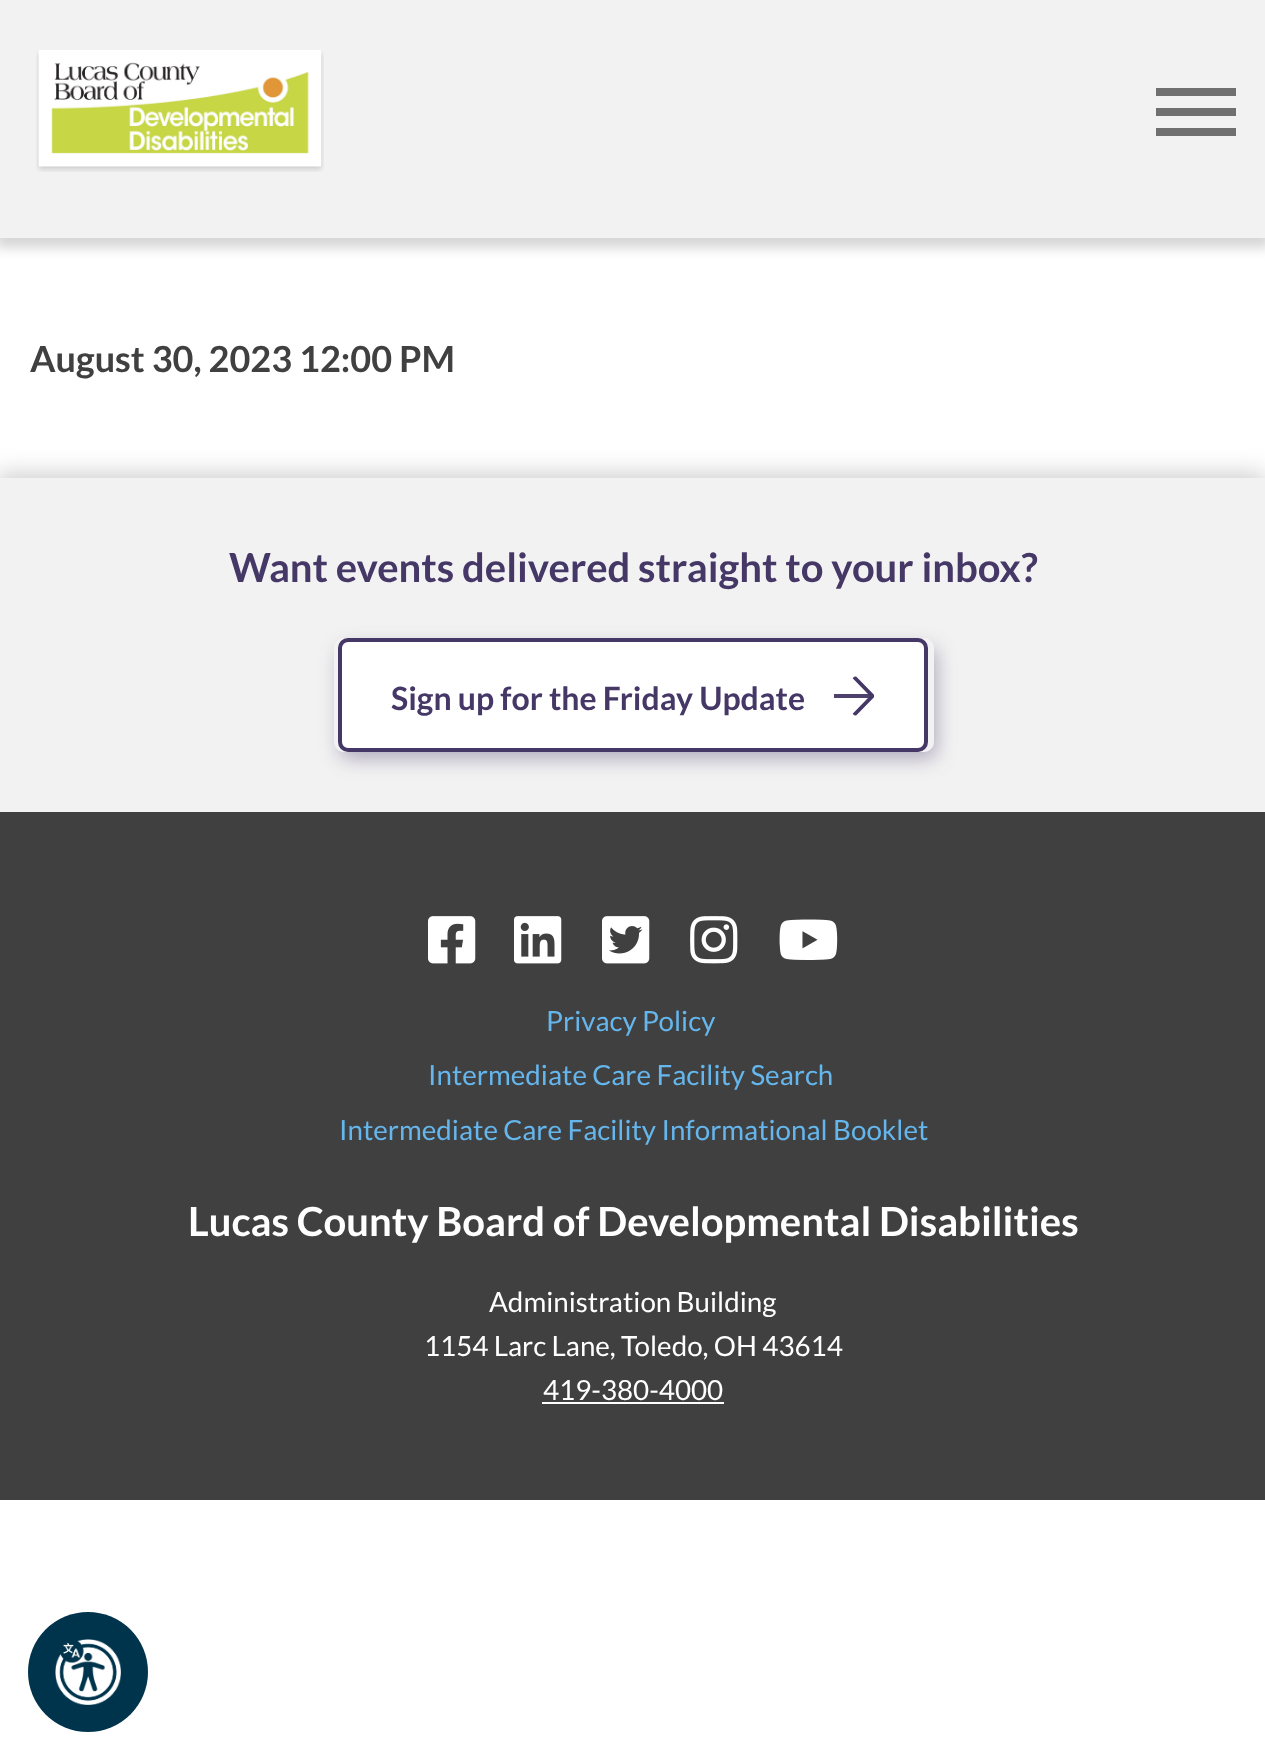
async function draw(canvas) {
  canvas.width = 1265;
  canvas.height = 1760;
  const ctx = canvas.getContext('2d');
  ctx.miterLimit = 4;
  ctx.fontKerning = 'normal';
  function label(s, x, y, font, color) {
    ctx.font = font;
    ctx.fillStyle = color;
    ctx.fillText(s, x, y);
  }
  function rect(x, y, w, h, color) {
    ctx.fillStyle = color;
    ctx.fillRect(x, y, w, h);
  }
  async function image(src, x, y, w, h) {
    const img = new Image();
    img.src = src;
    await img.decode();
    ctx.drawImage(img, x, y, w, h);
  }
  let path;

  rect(0, 0, 1265, 1760, '#fff');
  ctx.fillStyle = '#00000029';
  ctx.filter = 'blur(6px)';
  ctx.beginPath();
  ctx.rect(-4, 2, 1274, 246);
  ctx.fill();
  ctx.filter = 'none';
  rect(0, 0, 1265, 238, '#f2f2f2');
  await image('assets/img1.png', 36, 50, 288, 122);
  rect(1156, 88, 80, 8, '#707070');
  rect(1156, 108, 80, 8, '#707070');
  rect(1156, 128, 80, 8, '#707070');
  label('August 30, 2023 12:00 PM', 30, 372, 'bold 36px Lato', '#404040');
  ctx.fillStyle = '#ccc';
  ctx.filter = 'blur(12px)';
  ctx.beginPath();
  ctx.rect(-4, 474, 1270, 338);
  ctx.fill();
  ctx.filter = 'none';
  rect(0, 478, 1265, 334, '#f2f2f2');
  label('Want events delivered straight to your inbox?', 229, 582, 'bold 40px Lato', '#453766');
  ctx.save();
  path = new Path2D('M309 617H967V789H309ZM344 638H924C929.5 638 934 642.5 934 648V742C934 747.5 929.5 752 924 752H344C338.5 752 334 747.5 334 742V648C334 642.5 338.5 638 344 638Z');
  ctx.clip(path, 'evenodd');
  ctx.fillStyle = '#45376666';
  ctx.filter = 'blur(10px)';
  ctx.beginPath();
  ctx.roundRect(340, 648, 596, 110, 8);
  ctx.fill();
  ctx.filter = 'none';
  ctx.restore();
  ctx.fillStyle = '#fff';
  ctx.beginPath();
  ctx.roundRect(340, 640, 586, 110, 8);
  ctx.fill();
  ctx.strokeStyle = '#453766';
  ctx.lineWidth = 4;
  ctx.stroke();
  label('Sign up for the Friday Update', 391, 710, 'bold 32px Lato', '#453766');
  ctx.save();
  path = new Path2D('M874 676.5V715.5H834V676.5Z');
  ctx.clip(path);
  path = new Path2D('M854 715L872.5 696L854 677');
  ctx.lineWidth = 3.8;
  ctx.stroke(path);
  ctx.restore();
  rect(834, 694, 38, 4, '#453766f2');
  rect(0, 812, 1265, 688, '#404040');
  await image('assets/img2.png', 428, 916, 48, 48);
  await image('assets/img3.png', 514, 916, 48, 48);
  await image('assets/img4.png', 602, 916, 48, 48);
  await image('assets/img5.png', 690, 916, 48, 48);
  await image('assets/img6.png', 779, 919, 59, 41);
  label('Privacy Policy', 546, 1031, '27.75px Lato', '#65b6ec');
  label('Intermediate Care Facility Search', 428, 1085, '27.75px Lato', '#65b6ec');
  label('Intermediate Care Facility Informational Booklet', 339, 1140, '27.75px Lato', '#65b6ec');
  label('Lucas County Board of Developmental Disabilities', 188, 1236, 'bold 40px Lato', '#fff');
  label('Administration Building', 489, 1312, '27.75px Lato', '#fff');
  label('1154 Larc Lane, Toledo, OH 43614', 424, 1356, '27.75px Lato', '#fff');
  label('419-380-4000', 543, 1400, '27.75px Lato', '#fff');
  rect(542, 1402, 182, 2, '#fff');
  ctx.fillStyle = '#00344c';
  ctx.beginPath();
  ctx.arc(88, 1672, 60, 0, 2 * Math.PI);
  ctx.fill();
  await image('assets/img7.png', 55, 1639, 66, 66);
}

draw(document.querySelector('canvas'));
